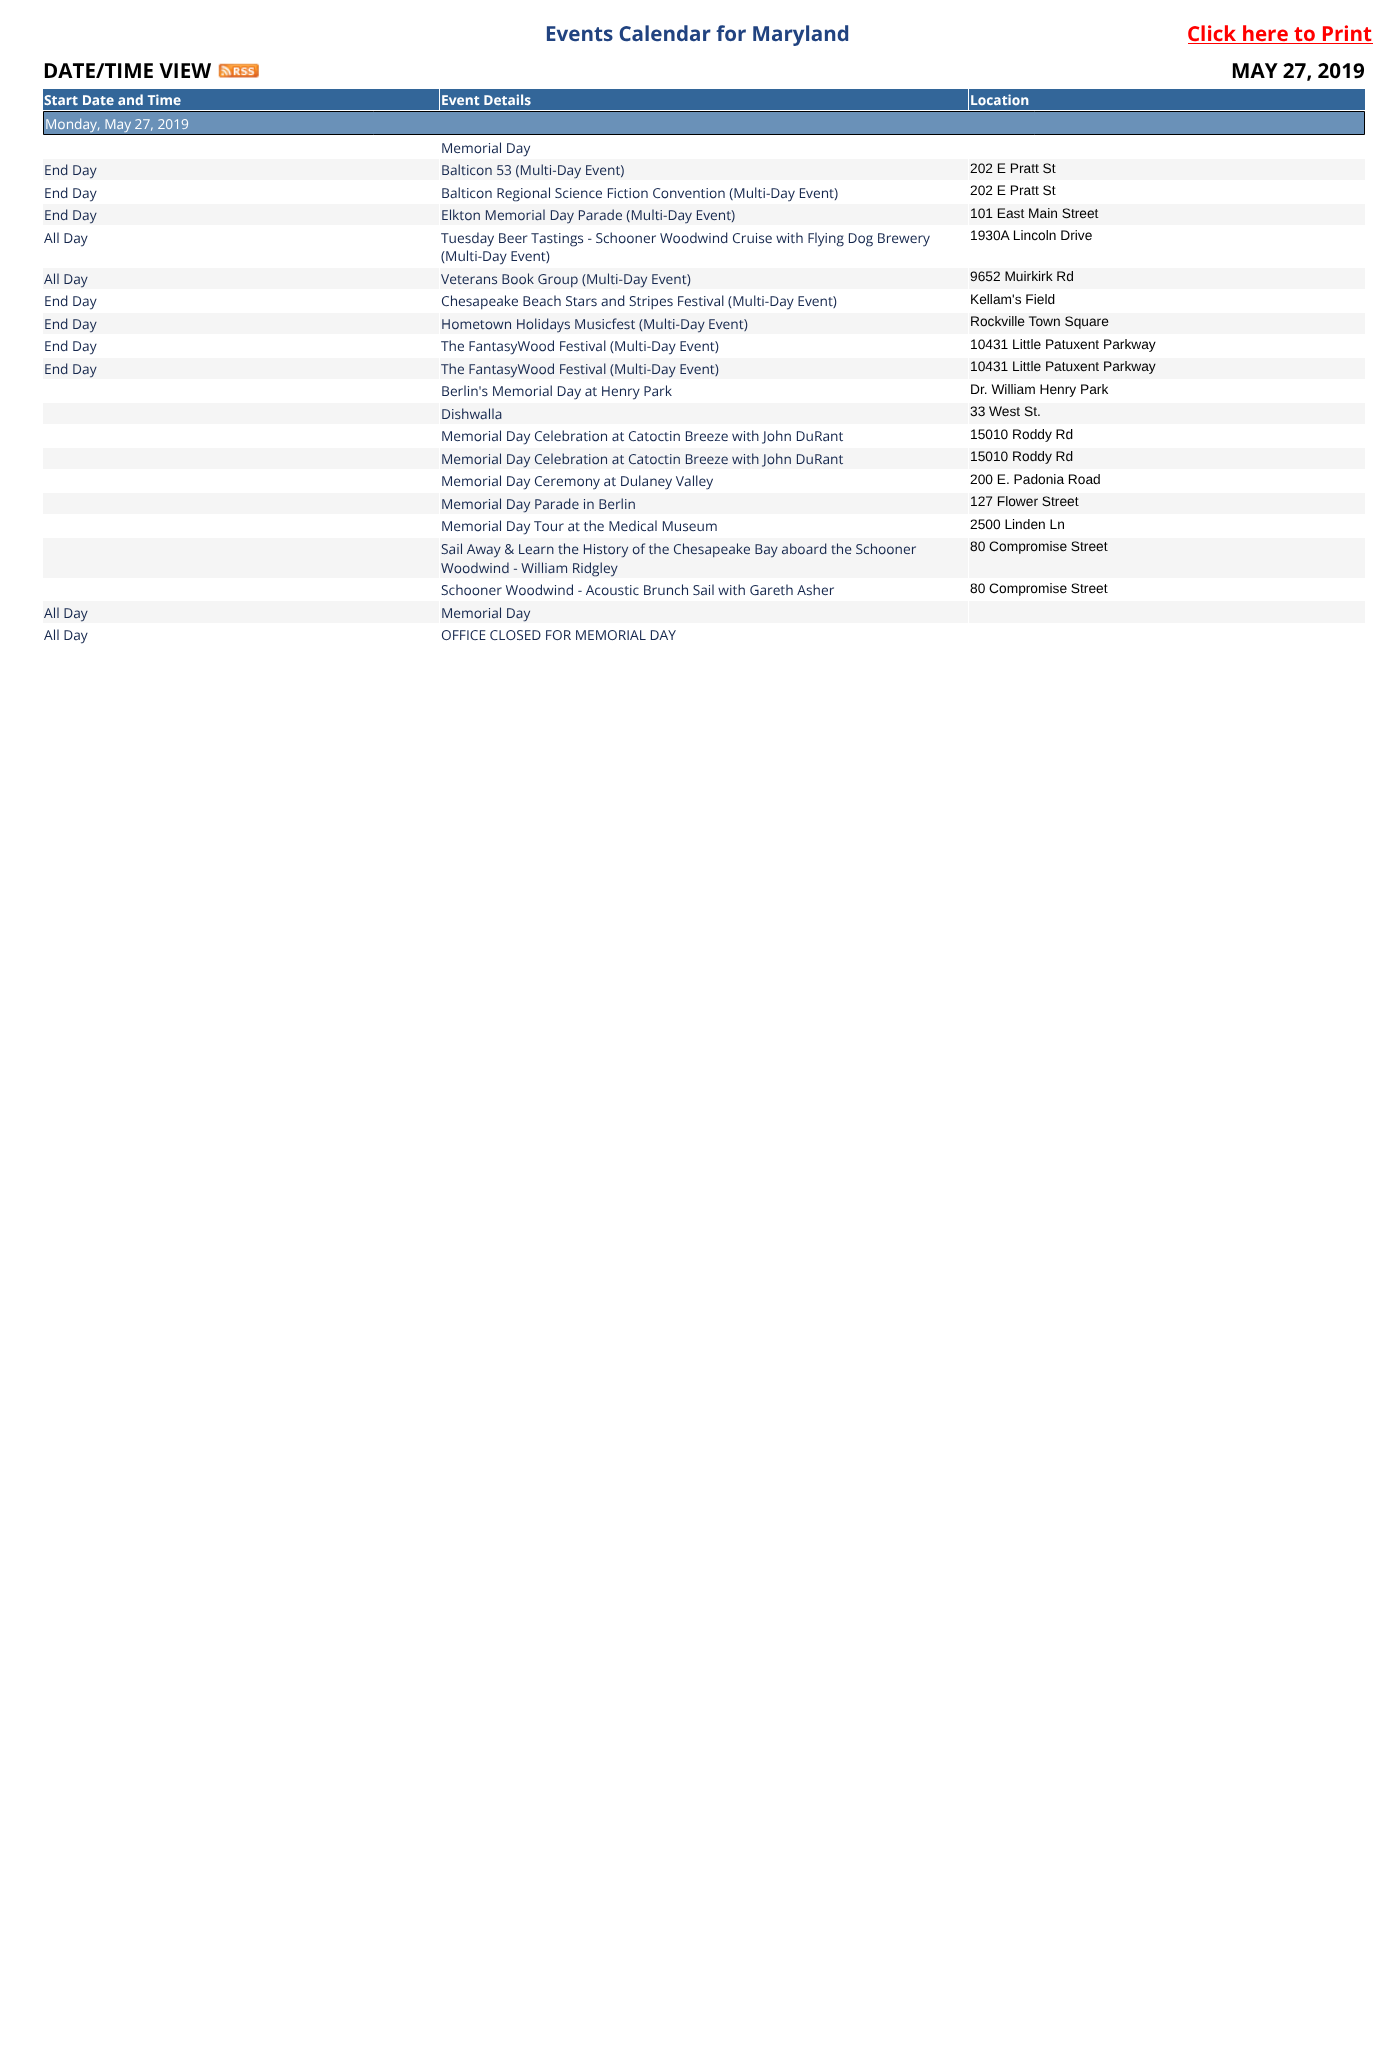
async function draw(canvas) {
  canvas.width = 1395;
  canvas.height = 2065;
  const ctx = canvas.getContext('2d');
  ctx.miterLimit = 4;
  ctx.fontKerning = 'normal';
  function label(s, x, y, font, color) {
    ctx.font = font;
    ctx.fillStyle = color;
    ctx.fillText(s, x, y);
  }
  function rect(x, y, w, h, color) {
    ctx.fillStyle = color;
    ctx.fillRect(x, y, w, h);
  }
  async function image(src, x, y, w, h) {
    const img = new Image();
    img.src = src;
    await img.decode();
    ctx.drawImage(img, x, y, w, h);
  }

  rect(0, 0, 1395, 2065, '#fff');
  label('Events Calendar for Maryland', 545, 41, 'bold 20.6px Open Sans', '#214380');
  label('Click here to Print', 1187, 41, 'bold 20.6px Open Sans', '#f00');
  rect(1188, 43, 185, 1, '#f00');
  label('DATE/TIME VIEW', 43, 78, 'bold 20.6px Open Sans', '#000');
  await image('assets/img1.png', 218, 63, 41, 15);
  label('MAY 27, 2019', 1231, 78, 'bold 20.6px Open Sans', '#000');
  rect(43, 89, 396, 21, '#369');
  label('Start Date and Time', 44, 105, 'bold 13.75px Open Sans', '#fff');
  rect(440, 89, 528, 21, '#369');
  label('Event Details', 441, 105, 'bold 13.75px Open Sans', '#fff');
  rect(969, 89, 396, 21, '#369');
  label('Location', 970, 105, 'bold 13.75px Open Sans', '#fff');
  ctx.fillStyle = '#6a91b8';
  ctx.beginPath();
  ctx.rect(43.5, 111.5, 1321, 23);
  ctx.fill();
  ctx.strokeStyle = '#000';
  ctx.stroke();
  label('Monday, May 27, 2019', 45, 129, '13.75px Open Sans', '#fff');
  label('Memorial Day', 441, 153, '13.75px Open Sans', '#15274d');
  rect(43, 159, 396, 21, '#f5f5f5');
  label('End Day', 44, 175, '13.75px Open Sans', '#15274d');
  rect(440, 159, 528, 21, '#f5f5f5');
  label('Balticon 53 (Multi-Day Event)', 441, 175, '13.75px Open Sans', '#15274d');
  rect(969, 159, 396, 21, '#f5f5f5');
  label('202 E Pratt St', 970, 173, '13.75px Liberation Sans', '#000');
  label('End Day', 44, 198, '13.75px Open Sans', '#15274d');
  label('Balticon Regional Science Fiction Convention (Multi-Day Event)', 441, 198, '13.75px Open Sans', '#15274d');
  label('202 E Pratt St', 970, 195, '13.75px Liberation Sans', '#000');
  rect(43, 204, 396, 21, '#f5f5f5');
  label('End Day', 44, 220, '13.75px Open Sans', '#15274d');
  rect(440, 204, 528, 21, '#f5f5f5');
  label('Elkton Memorial Day Parade (Multi-Day Event)', 441, 220, '13.75px Open Sans', '#15274d');
  rect(969, 204, 396, 21, '#f5f5f5');
  label('101 East Main Street', 970, 218, '13.75px Liberation Sans', '#000');
  label('All Day', 44, 243, '13.75px Open Sans', '#15274d');
  label('Tuesday Beer Tastings - Schooner Woodwind Cruise with Flying Dog Brewery', 441, 243, '13.75px Open Sans', '#15274d');
  label('(Multi-Day Event)', 441, 261, '13.75px Open Sans', '#15274d');
  label('1930A Lincoln Drive', 970, 240, '13.75px Liberation Sans', '#000');
  rect(43, 268, 396, 21, '#f5f5f5');
  label('All Day', 44, 284, '13.75px Open Sans', '#15274d');
  rect(440, 268, 528, 21, '#f5f5f5');
  label('Veterans Book Group (Multi-Day Event)', 441, 284, '13.75px Open Sans', '#15274d');
  rect(969, 268, 396, 21, '#f5f5f5');
  label('9652 Muirkirk Rd', 970, 281, '13.75px Liberation Sans', '#000');
  label('End Day', 44, 306, '13.75px Open Sans', '#15274d');
  label('Chesapeake Beach Stars and Stripes Festival (Multi-Day Event)', 441, 306, '13.75px Open Sans', '#15274d');
  label('Kellam\'s Field', 970, 304, '13.75px Liberation Sans', '#000');
  rect(43, 313, 396, 21, '#f5f5f5');
  label('End Day', 44, 329, '13.75px Open Sans', '#15274d');
  rect(440, 313, 528, 21, '#f5f5f5');
  label('Hometown Holidays Musicfest (Multi-Day Event)', 441, 329, '13.75px Open Sans', '#15274d');
  rect(969, 313, 396, 21, '#f5f5f5');
  label('Rockville Town Square', 970, 326, '13.75px Liberation Sans', '#000');
  label('End Day', 44, 351, '13.75px Open Sans', '#15274d');
  label('The FantasyWood Festival (Multi-Day Event)', 441, 351, '13.75px Open Sans', '#15274d');
  label('10431 Little Patuxent Parkway', 970, 349, '13.75px Liberation Sans', '#000');
  rect(43, 358, 396, 21, '#f5f5f5');
  label('End Day', 44, 374, '13.75px Open Sans', '#15274d');
  rect(440, 358, 528, 21, '#f5f5f5');
  label('The FantasyWood Festival (Multi-Day Event)', 441, 374, '13.75px Open Sans', '#15274d');
  rect(969, 358, 396, 21, '#f5f5f5');
  label('10431 Little Patuxent Parkway', 970, 371, '13.75px Liberation Sans', '#000');
  label('Berlin\'s Memorial Day at Henry Park', 441, 396, '13.75px Open Sans', '#15274d');
  label('Dr. William Henry Park', 970, 394, '13.75px Liberation Sans', '#000');
  rect(43, 403, 396, 21, '#f5f5f5');
  rect(440, 403, 528, 21, '#f5f5f5');
  label('Dishwalla', 441, 419, '13.75px Open Sans', '#15274d');
  rect(969, 403, 396, 21, '#f5f5f5');
  label('33 West St.', 970, 416, '13.75px Liberation Sans', '#000');
  label('Memorial Day Celebration at Catoctin Breeze with John DuRant', 441, 441, '13.75px Open Sans', '#15274d');
  label('15010 Roddy Rd', 970, 439, '13.75px Liberation Sans', '#000');
  rect(43, 448, 396, 21, '#f5f5f5');
  rect(440, 448, 528, 21, '#f5f5f5');
  label('Memorial Day Celebration at Catoctin Breeze with John DuRant', 441, 464, '13.75px Open Sans', '#15274d');
  rect(969, 448, 396, 21, '#f5f5f5');
  label('15010 Roddy Rd', 970, 461, '13.75px Liberation Sans', '#000');
  label('Memorial Day Ceremony at Dulaney Valley', 441, 486, '13.75px Open Sans', '#15274d');
  label('200 E. Padonia Road', 970, 484, '13.75px Liberation Sans', '#000');
  rect(43, 493, 396, 21, '#f5f5f5');
  rect(440, 493, 528, 21, '#f5f5f5');
  label('Memorial Day Parade in Berlin', 441, 509, '13.75px Open Sans', '#15274d');
  rect(969, 493, 396, 21, '#f5f5f5');
  label('127 Flower Street', 970, 506, '13.75px Liberation Sans', '#000');
  label('Memorial Day Tour at the Medical Museum', 441, 531, '13.75px Open Sans', '#15274d');
  label('2500 Linden Ln', 970, 529, '13.75px Liberation Sans', '#000');
  rect(43, 538, 396, 40, '#f5f5f5');
  rect(440, 538, 528, 40, '#f5f5f5');
  label('Sail Away & Learn the History of the Chesapeake Bay aboard the Schooner', 441, 554, '13.75px Open Sans', '#15274d');
  label('Woodwind - William Ridgley', 441, 573, '13.75px Open Sans', '#15274d');
  rect(969, 538, 396, 40, '#f5f5f5');
  label('80 Compromise Street', 970, 551, '13.75px Liberation Sans', '#000');
  label('Schooner Woodwind - Acoustic Brunch Sail with Gareth Asher', 441, 595, '13.75px Open Sans', '#15274d');
  label('80 Compromise Street', 970, 593, '13.75px Liberation Sans', '#000');
  rect(43, 601, 396, 22, '#f5f5f5');
  label('All Day', 44, 618, '13.75px Open Sans', '#15274d');
  rect(440, 601, 528, 22, '#f5f5f5');
  label('Memorial Day', 441, 618, '13.75px Open Sans', '#15274d');
  rect(969, 601, 396, 22, '#f5f5f5');
  label('All Day', 44, 640, '13.75px Open Sans', '#15274d');
  label('OFFICE CLOSED FOR MEMORIAL DAY', 441, 640, '13.75px Open Sans', '#15274d');
}

draw(document.querySelector('canvas'));
